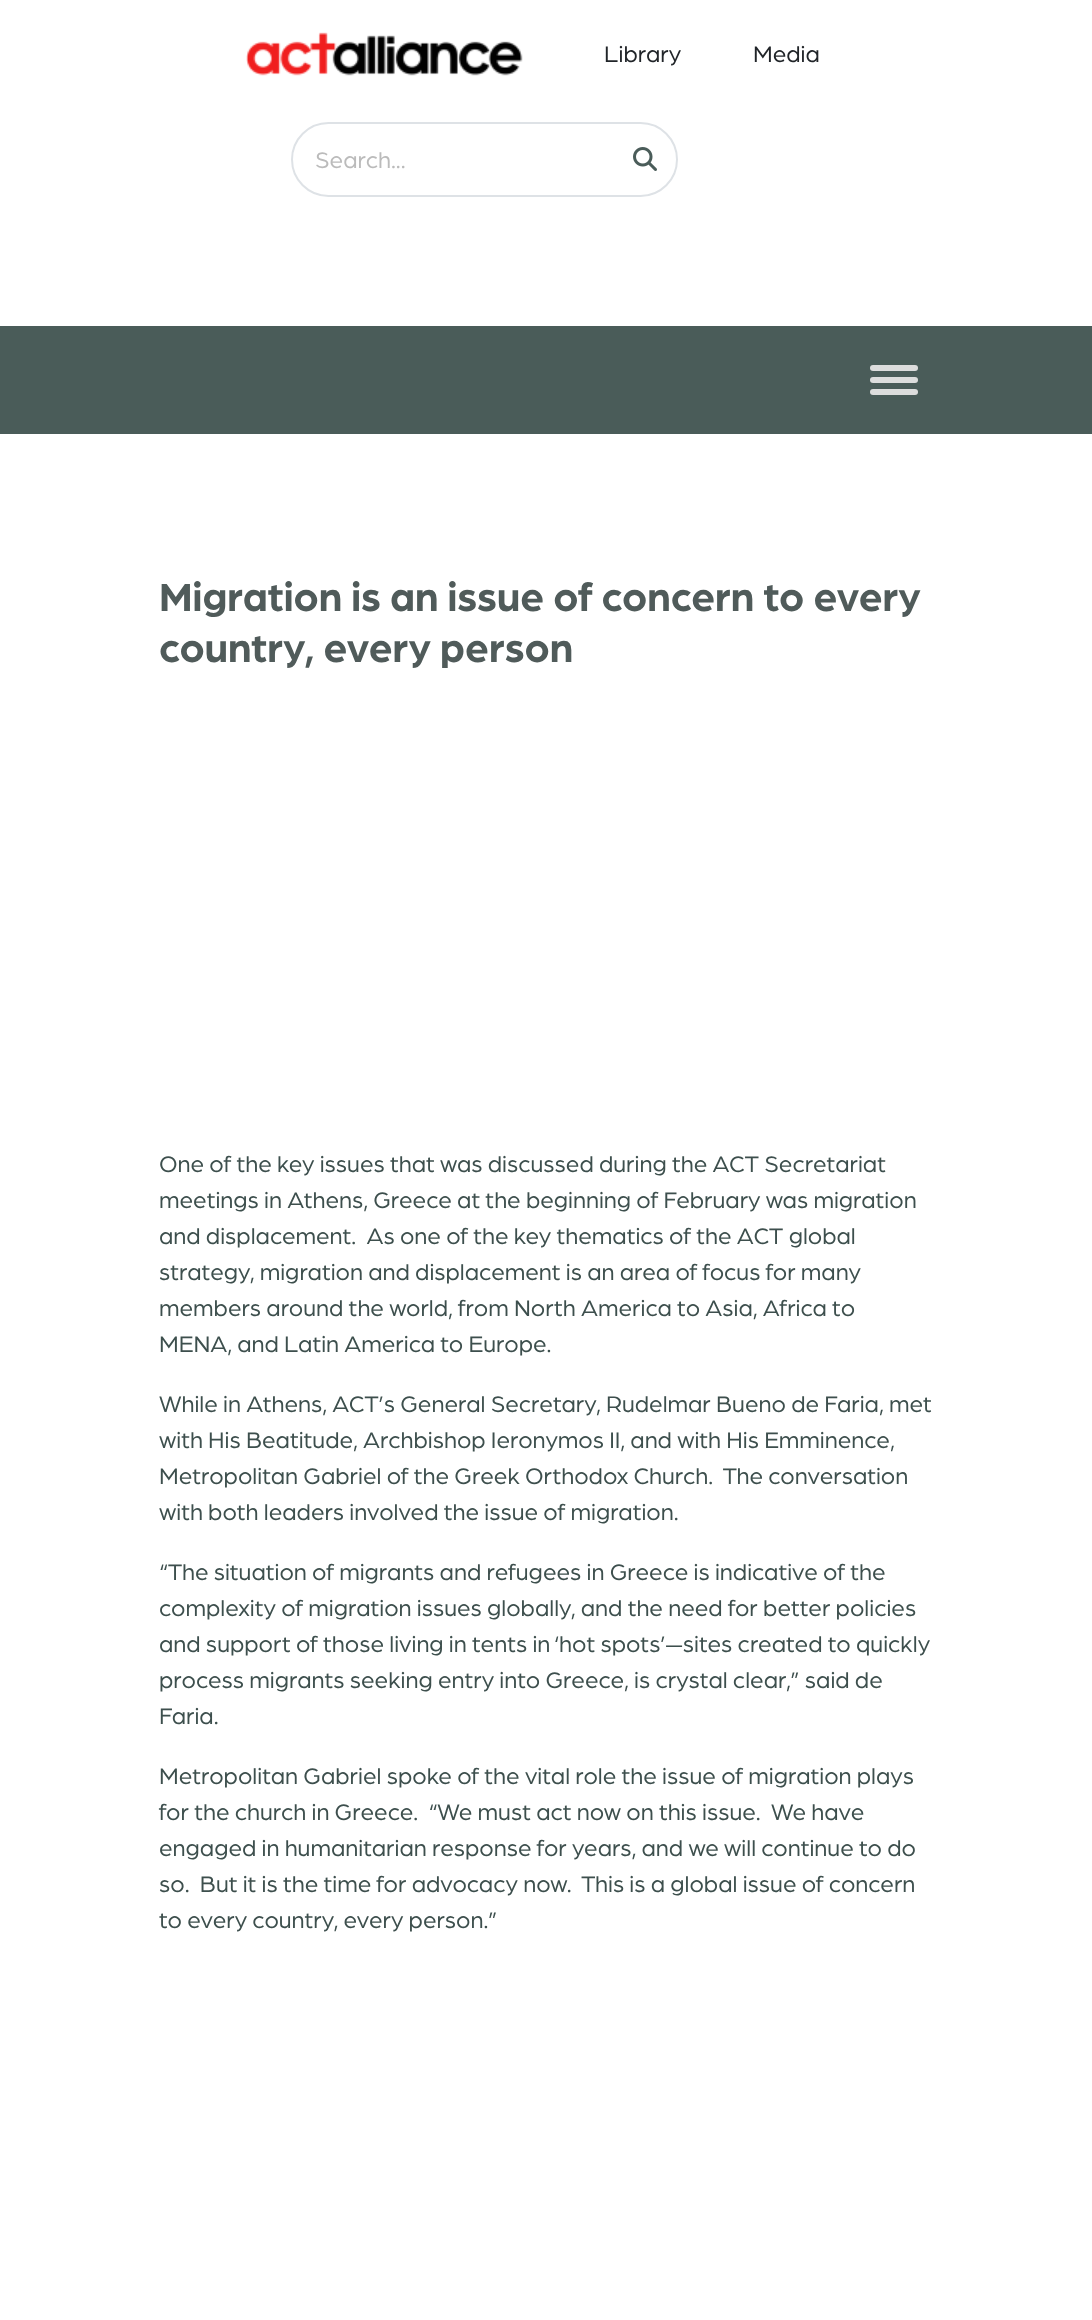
async function draw(canvas) {
  canvas.width = 1092;
  canvas.height = 2320;
  const ctx = canvas.getContext('2d');
  ctx.miterLimit = 4;
  ctx.fontKerning = 'normal';
  function label(s, x, y, font, color) {
    ctx.font = font;
    ctx.fillStyle = color;
    ctx.fillText(s, x, y);
  }
  function rect(x, y, w, h, color) {
    ctx.fillStyle = color;
    ctx.fillRect(x, y, w, h);
  }
  function roundedRect(x, y, w, h, r, color) {
    ctx.fillStyle = color;
    ctx.beginPath();
    ctx.roundRect(x, y, w, h, r);
    ctx.fill();
  }
  async function image(src, x, y, w, h) {
    const img = new Image();
    img.src = src;
    await img.decode();
    ctx.drawImage(img, x, y, w, h);
  }

  rect(0, 0, 1092, 2320, '#fff');
  await image('assets/img1.png', 246, 32, 277, 44);
  label('Library', 604, 62, '24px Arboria', '#212529');
  label('Media', 753, 62, '24px Arboria', '#212529');
  ctx.beginPath();
  ctx.roundRect(292, 123, 385, 73, 36.5);
  ctx.strokeStyle = '#dee2e6';
  ctx.lineWidth = 2;
  ctx.stroke();
  label('Search...', 315, 168, '24px Arboria', '#bbb');
  await image('assets/img2.png', 633, 147, 24, 24);
  rect(0, 326, 1092, 108, '#4a5c59');
  roundedRect(870, 365, 48, 6, 3, '#ddd');
  roundedRect(870, 377, 48, 6, 3, '#ddd');
  roundedRect(870, 389, 48, 6, 3, '#ddd');
  label('Migration is an issue of concern to every', 159, 611, 'bold 41.6px Arboria', '#505b5a');
  label('country, every person', 159, 662, 'bold 41.6px Arboria', '#505b5a');
  label('One of the key issues that was discussed during the ACT Secretariat', 159, 1172, '24px Arboria', '#3d4f4d');
  label('meetings in Athens, Greece at the beginning of February was migration', 159, 1208, '24px Arboria', '#3d4f4d');
  label('and displacement.  As one of the key thematics of the ACT global', 159, 1244, '24px Arboria', '#3d4f4d');
  label('strategy, migration and displacement is an area of focus for many', 159, 1280, '24px Arboria', '#3d4f4d');
  label('members around the world, from North America to Asia, Africa to', 159, 1316, '24px Arboria', '#3d4f4d');
  label('MENA, and Latin America to Europe.', 159, 1352, '24px Arboria', '#3d4f4d');
  label('While in Athens, ACT’s General Secretary, Rudelmar Bueno de Faria, met', 159, 1412, '24px Arboria', '#3d4f4d');
  label('with His Beatitude, Archbishop Ieronymos II, and with His Emminence,', 159, 1448, '24px Arboria', '#3d4f4d');
  label('Metropolitan Gabriel of the Greek Orthodox Church.  The conversation', 159, 1484, '24px Arboria', '#3d4f4d');
  label('with both leaders involved the issue of migration.', 159, 1520, '24px Arboria', '#3d4f4d');
  label('“The situation of migrants and refugees in Greece is indicative of the', 159, 1580, '24px Arboria', '#3d4f4d');
  label('complexity of migration issues globally, and the need for better policies', 159, 1616, '24px Arboria', '#3d4f4d');
  label('and support of those living in tents in ‘hot spots’—sites created to quickly', 159, 1652, '24px Arboria', '#3d4f4d');
  label('process migrants seeking entry into Greece, is crystal clear,” said de', 159, 1688, '24px Arboria', '#3d4f4d');
  label('Faria.', 159, 1724, '24px Arboria', '#3d4f4d');
  label('Metropolitan Gabriel spoke of the vital role the issue of migration plays', 159, 1784, '24px Arboria', '#3d4f4d');
  label('for the church in Greece.  “We must act now on this issue.  We have', 159, 1820, '24px Arboria', '#3d4f4d');
  label('engaged in humanitarian response for years, and we will continue to do', 159, 1856, '24px Arboria', '#3d4f4d');
  label('so.  But it is the time for advocacy now.  This is a global issue of concern', 159, 1892, '24px Arboria', '#3d4f4d');
  label('to every country, every person.”', 159, 1928, '24px Arboria', '#3d4f4d');
}

draw(document.querySelector('canvas'));
